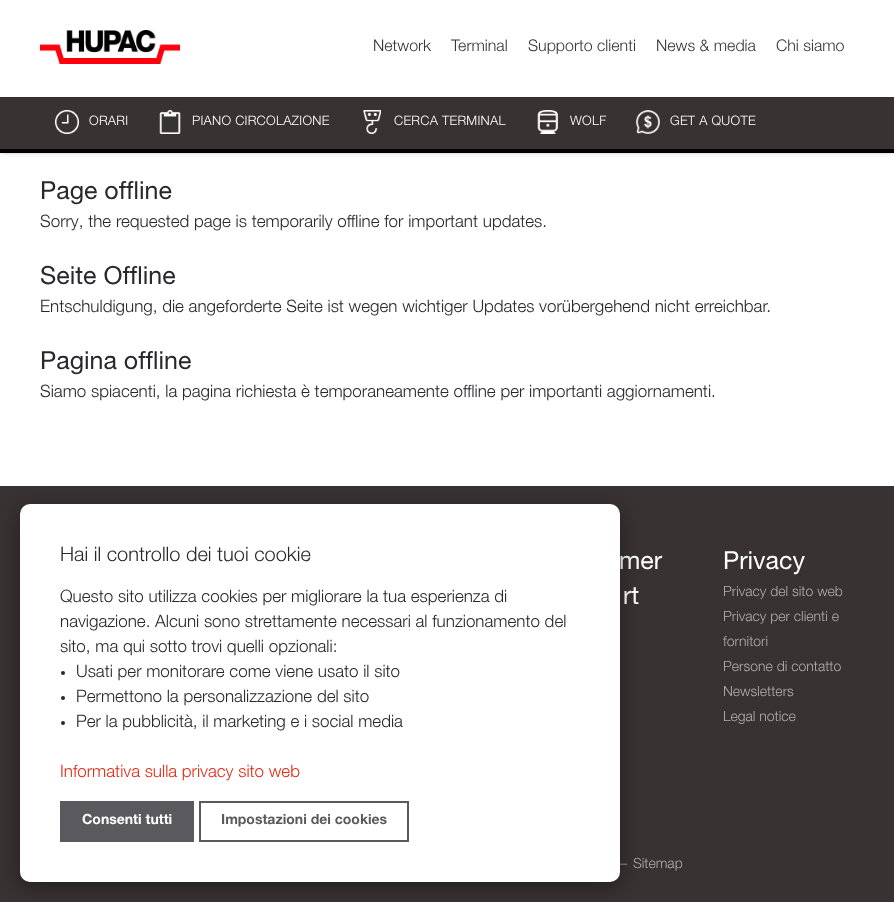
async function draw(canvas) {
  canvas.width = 894;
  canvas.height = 902;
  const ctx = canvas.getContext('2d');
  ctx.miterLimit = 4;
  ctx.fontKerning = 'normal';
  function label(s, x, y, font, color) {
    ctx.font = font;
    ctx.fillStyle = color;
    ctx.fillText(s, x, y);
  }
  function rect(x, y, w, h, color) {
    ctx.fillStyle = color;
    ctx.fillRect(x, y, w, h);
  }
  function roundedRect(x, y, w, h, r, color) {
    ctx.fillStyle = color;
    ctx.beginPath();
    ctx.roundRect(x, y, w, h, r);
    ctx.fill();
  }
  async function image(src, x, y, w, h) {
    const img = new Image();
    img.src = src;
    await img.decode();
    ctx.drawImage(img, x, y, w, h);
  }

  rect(0, 0, 894, 902, '#fff');
  ctx.fillStyle = '#00000033';
  ctx.filter = 'blur(2px)';
  ctx.beginPath();
  ctx.rect(0, -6, 894, 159);
  ctx.fill();
  ctx.filter = 'none';
  rect(0, 0, 894, 97, '#fff');
  await image('assets/img1.png', 40, 30, 140, 34);
  label('Network', 373, 51, '300 16px Helvetica Neue', '#393232');
  label('Terminal', 451, 51, '300 16px Helvetica Neue', '#393232');
  label('Supporto clienti', 528, 51, '300 16px Helvetica Neue', '#393232');
  label('News & media', 656, 51, '300 16px Helvetica Neue', '#393232');
  label('Chi siamo', 776, 51, '300 16px Helvetica Neue', '#393232');
  rect(0, 97, 894, 52, '#393232');
  rect(0, 149, 894, 4, '#000');
  await image('assets/img2.png', 55, 110, 24, 24);
  ctx.letterSpacing = '0.25px';
  label('ORARI', 89, 125, '300 13px Helvetica Neue', '#fff');
  await image('assets/img3.png', 159, 110, 22, 24);
  label('PIANO CIRCOLAZIONE', 192, 125, '300 13px Helvetica Neue', '#fff');
  await image('assets/img4.png', 363, 110, 18, 24);
  label('CERCA TERMINAL', 394, 125, '300 13px Helvetica Neue', '#fff');
  await image('assets/img5.png', 537, 110, 21, 24);
  label('WOLF', 570, 125, '300 13px Helvetica Neue', '#fff');
  await image('assets/img6.png', 636, 110, 24, 24);
  label('GET A QUOTE', 670, 125, '300 13px Helvetica Neue', '#fff');
  ctx.letterSpacing = '0px';
  label('Page offline', 40, 199, '25px Helvetica Neue', '#28282c');
  label('Sorry, the requested page is temporarily offline for important updates.', 40, 227, '300 17px Helvetica Neue', '#28282c');
  label('Seite Offline', 40, 284, '25px Helvetica Neue', '#28282c');
  label('Entschuldigung, die angeforderte Seite ist wegen wichtiger Updates vorübergehend nicht erreichbar.', 40, 312, '300 17px Helvetica Neue', '#28282c');
  label('Pagina offline', 40, 369, '25px Helvetica Neue', '#28282c');
  label('Siamo spiacenti, la pagina richiesta è temporaneamente offline per importanti aggiornamenti.', 40, 397, '300 17px Helvetica Neue', '#28282c');
  rect(0, 486, 894, 416, '#393232');
  label('mer', 619, 569, '25px Helvetica Neue', '#fff');
  label('rt', 623, 604, '25px Helvetica Neue', '#fff');
  label('Privacy', 723, 569, '25px Helvetica Neue', '#fff');
  label('Privacy del sito web', 723, 596, '300 14px Helvetica Neue', '#b0adad');
  label('Privacy per clienti e', 723, 621, '300 14px Helvetica Neue', '#b0adad');
  label('fornitori', 723, 646, '300 14px Helvetica Neue', '#b0adad');
  label('Persone di contatto', 723, 671, '300 14px Helvetica Neue', '#b0adad');
  label('Newsletters', 723, 696, '300 14px Helvetica Neue', '#b0adad');
  label('Legal notice', 723, 721, '300 14px Helvetica Neue', '#b0adad');
  label('— Sitemap', 615, 868, '300 14px Helvetica Neue', '#b0adad');
  ctx.fillStyle = '#00000066';
  ctx.filter = 'blur(10px)';
  ctx.beginPath();
  ctx.roundRect(20, 509, 600, 378, 10);
  ctx.fill();
  ctx.filter = 'none';
  roundedRect(20, 504, 600, 378, 10, '#fff');
  label('Hai il controllo dei tuoi cookie', 60, 561, '300 20px Helvetica Neue', '#28282c');
  label('Questo sito utilizza cookies per migliorare la tua esperienza di', 60, 602, '300 17px Helvetica Neue', '#28282c');
  label('navigazione. Alcuni sono strettamente necessari al funzionamento del', 60, 627, '300 17px Helvetica Neue', '#28282c');
  label('sito, ma qui sotto trovi quelli opzionali:', 60, 652, '300 17px Helvetica Neue', '#28282c');
  ctx.beginPath();
  ctx.arc(63, 673, 2, 0, 2 * Math.PI);
  ctx.fill();
  label('Usati per monitorare come viene usato il sito', 76, 677, '300 17px Helvetica Neue', '#28282c');
  ctx.beginPath();
  ctx.arc(63, 698, 2, 0, 2 * Math.PI);
  ctx.fill();
  label('Permettono la personalizzazione del sito', 76, 702, '300 17px Helvetica Neue', '#28282c');
  ctx.beginPath();
  ctx.arc(63, 723, 2, 0, 2 * Math.PI);
  ctx.fill();
  label('Per la pubblicità, il marketing e i social media', 76, 727, '300 17px Helvetica Neue', '#28282c');
  label('Informativa sulla privacy sito web', 60, 777, '300 17px Helvetica Neue', '#e42b15');
  rect(60, 801, 134, 41, '#5a5a5e');
  label('Consenti tutti', 82, 824, 'bold 14px Helvetica Neue', '#fff');
  ctx.strokeStyle = '#5a5a5e';
  ctx.lineWidth = 2;
  ctx.strokeRect(200, 802, 208, 39);
  label('Impostazioni dei cookies', 221, 824, 'bold 14px Helvetica Neue', '#5a5a5e');
}

draw(document.querySelector('canvas'));
